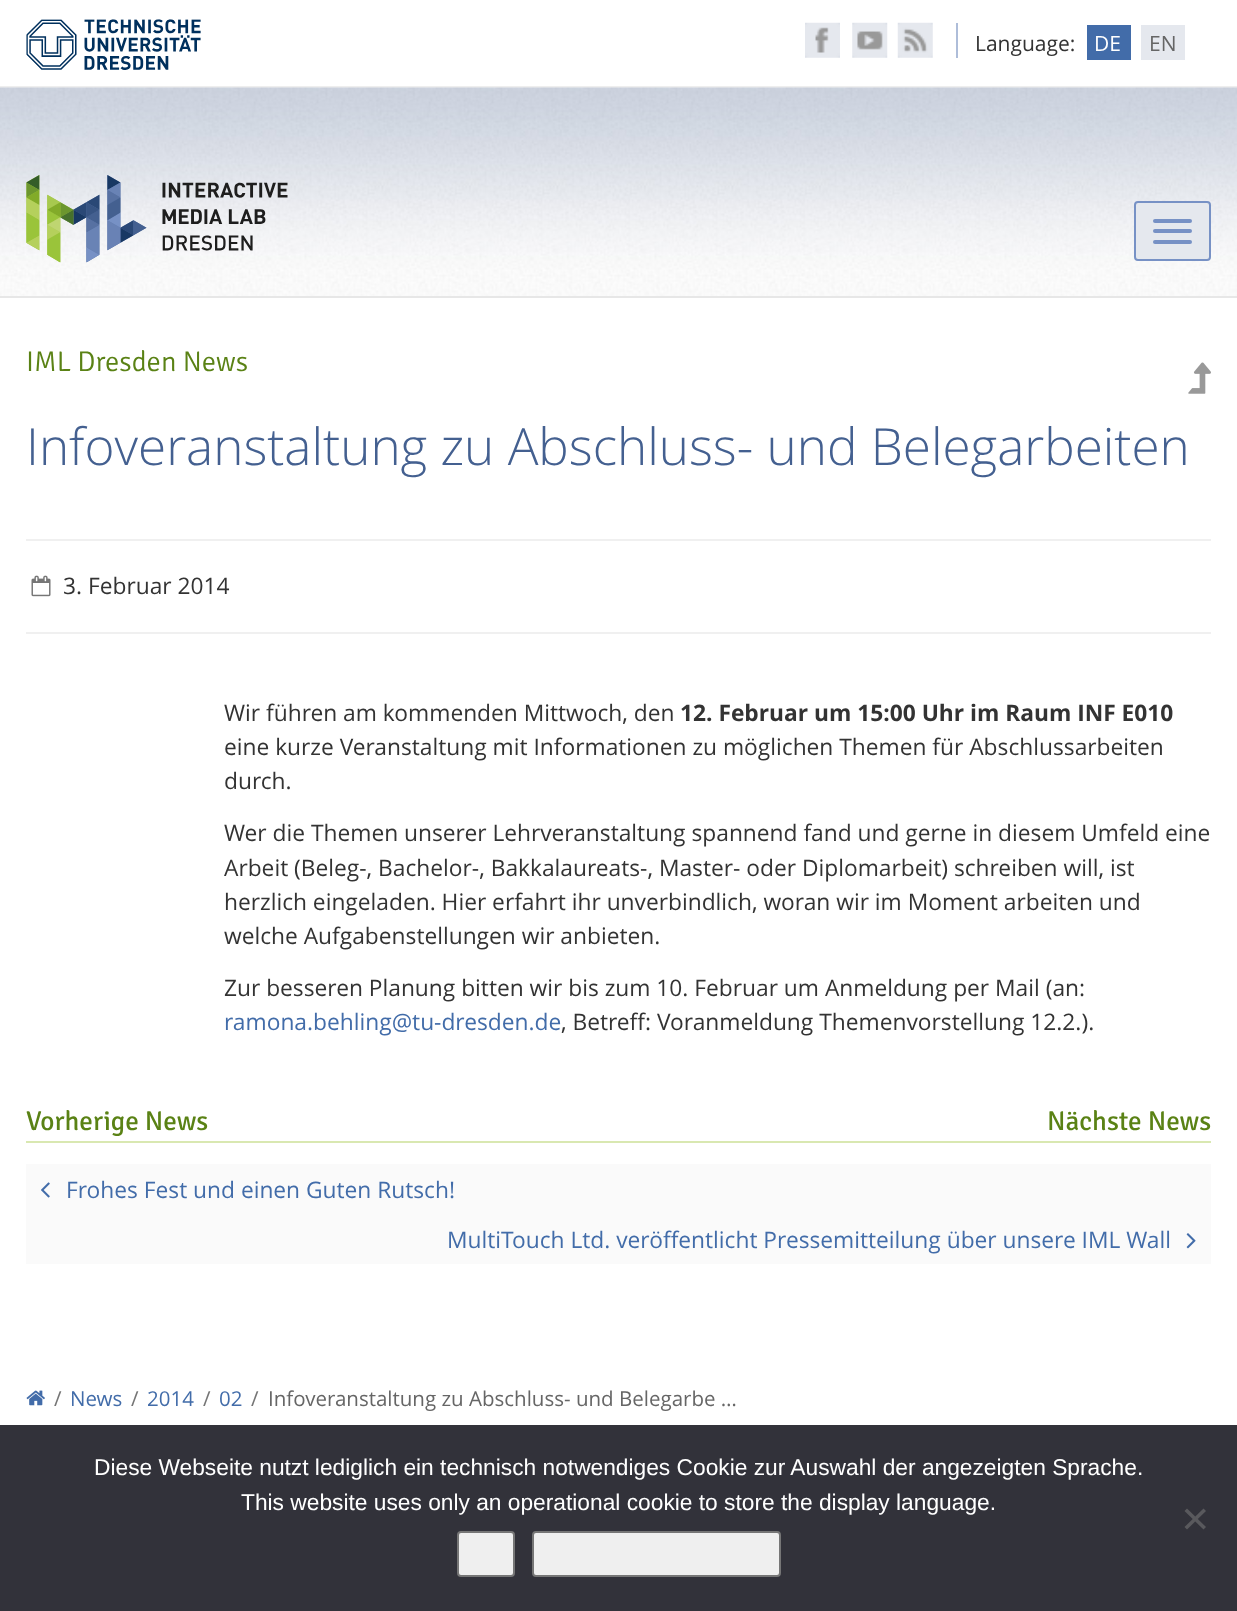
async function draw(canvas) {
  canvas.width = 1237;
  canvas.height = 1611;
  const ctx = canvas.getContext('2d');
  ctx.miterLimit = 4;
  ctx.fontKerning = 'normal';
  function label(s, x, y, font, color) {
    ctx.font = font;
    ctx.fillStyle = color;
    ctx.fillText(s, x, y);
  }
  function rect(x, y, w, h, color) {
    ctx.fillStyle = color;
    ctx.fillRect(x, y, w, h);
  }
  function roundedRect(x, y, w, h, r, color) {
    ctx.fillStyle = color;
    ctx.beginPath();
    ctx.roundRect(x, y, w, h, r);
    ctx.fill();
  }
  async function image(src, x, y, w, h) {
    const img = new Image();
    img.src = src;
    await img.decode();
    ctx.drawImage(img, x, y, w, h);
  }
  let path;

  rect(0, 0, 1237, 1611, '#fff');
  rect(0, 86, 1237, 2, '#eee');
  await image('assets/img1.png', 26, 19, 175, 51);
  rect(956, 23, 2, 35, '#aebdd9');
  await image('assets/img2.png', 805, 22, 35, 36);
  await image('assets/img3.png', 852, 22, 36, 36);
  await image('assets/img4.png', 897, 22, 36, 36);
  label('Language:', 975, 51, '21px Open Sans', '#333');
  rect(1087, 25, 44, 35, '#426ca9');
  label('DE', 1094, 51, '21px Open Sans', '#fff');
  rect(1141, 25, 44, 35, '#e5e8ee');
  label('EN', 1149, 51, '21px Open Sans', '#666');
  await image('assets/img5.png', 0, 87, 1237, 209);
  rect(0, 296, 1237, 2, '#e7e7e7');
  await image('assets/img6.png', 26, 175, 262, 88);
  ctx.fillStyle = '#e5e8ee';
  ctx.beginPath();
  ctx.roundRect(1135, 202, 75, 58, 3);
  ctx.fill();
  ctx.strokeStyle = '#7791c5';
  ctx.lineWidth = 2;
  ctx.stroke();
  roundedRect(1153, 219, 39, 4, 2, '#7791c5');
  roundedRect(1153, 229, 39, 4, 2, '#7791c5');
  roundedRect(1153, 240, 39, 4, 2, '#7791c5');
  label('IML Dresden News', 26, 371, '300 28.5px Signika', '#5a8215');
  label('Infoveranstaltung zu Abschluss- und Belegarbeiten', 26, 465, '300 51.2px Open Sans', '#446090');
  await image('assets/img7.png', 1188, 362, 23, 32);
  rect(26, 539, 1185, 2, '#f0f0f0');
  rect(26, 632, 1185, 2, '#f0f0f0');
  await image('assets/img8.png', 31, 575, 20, 22);
  label('3. Februar 2014', 63, 594, '22.75px Open Sans', '#333');
  label('Wir führen am kommenden Mittwoch, den', 224, 721, '22.75px Open Sans', '#333');
  label('12. Februar um 15:00 Uhr im Raum INF E010', 680, 721, 'bold 22.75px Open Sans', '#333');
  label('eine kurze Veranstaltung mit Informationen zu möglichen Themen für Abschlussarbeiten', 224, 755, '22.75px Open Sans', '#333');
  label('durch.', 224, 789, '22.75px Open Sans', '#333');
  label('Wer die Themen unserer Lehrveranstaltung spannend fand und gerne in diesem Umfeld eine', 224, 841, '22.75px Open Sans', '#333');
  label('Arbeit (Beleg-, Bachelor-, Bakkalaureats-, Master- oder Diplomarbeit) schreiben will, ist', 224, 876, '22.75px Open Sans', '#333');
  label('herzlich eingeladen. Hier erfahrt ihr unverbindlich, woran wir im Moment arbeiten und', 224, 910, '22.75px Open Sans', '#333');
  label('welche Aufgabenstellungen wir anbieten.', 224, 944, '22.75px Open Sans', '#333');
  label('Zur besseren Planung bitten wir bis zum 10. Februar um Anmeldung per Mail (an:', 224, 996, '22.75px Open Sans', '#333');
  label('ramona.behling@tu-dresden.de', 224, 1030, '22.75px Open Sans', '#426ca9');
  label(', Betreff: Voranmeldung Themenvorstellung 12.2.).', 561, 1030, '22.75px Open Sans', '#333');
  rect(26, 1141, 1185, 2, '#d9e8b1');
  label('Vorherige News', 26, 1130, '27.25px Signika', '#5a8215');
  label('Nächste News', 1047, 1130, '27.25px Signika', '#5a8215');
  rect(26, 1164, 1185, 100, '#fafafa');
  await image('assets/img9.png', 41, 1182, 9, 16);
  label('Frohes Fest und einen Guten Rutsch!', 66, 1198, '22.75px Open Sans', '#426ca9');
  label('MultiTouch Ltd. veröffentlicht Pressemitteilung über unsere IML Wall', 447, 1248, '22.75px Open Sans', '#426ca9');
  await image('assets/img10.png', 1186, 1233, 10, 16);
  await image('assets/img11.png', 26, 1390, 19, 16);
  label('/', 54, 1406, '20.5px Open Sans', '#757575');
  label('News', 70, 1406, '20.5px Open Sans', '#426ca9');
  label('/', 131, 1406, '20.5px Open Sans', '#757575');
  label('2014', 147, 1406, '20.5px Open Sans', '#426ca9');
  label('/', 203, 1406, '20.5px Open Sans', '#757575');
  label('02', 219, 1406, '20.5px Open Sans', '#426ca9');
  label('/', 251, 1406, '20.5px Open Sans', '#757575');
  label('Infoveranstaltung zu Abschluss- und Belegarbe …', 268, 1406, '20.5px Open Sans', '#666');
  rect(0, 1425, 1237, 186, '#32323a');
  label('Diese Webseite nutzt lediglich ein technisch notwendiges Cookie zur Auswahl der angezeigten Sprache.', 94, 1475, '22.75px Liberation Sans', '#fff');
  label('This website uses only an operational cookie to store the display language.', 241, 1510, '22.75px Liberation Sans', '#fff');
  ctx.fillStyle = '#59595d';
  path = new Path2D('M1203.5 1508.5L1206 1511L1187 1529.5L1184.5 1527Z');
  ctx.fill(path);
  path = new Path2D('M1184.5 1511L1187 1508.5L1206 1527L1203.5 1529.5Z');
  ctx.fill(path);
  ctx.fillStyle = '#efefef';
  ctx.beginPath();
  ctx.roundRect(458, 1532, 56, 44, 3);
  ctx.fill();
  ctx.strokeStyle = '#767676';
  ctx.stroke();
  ctx.beginPath();
  ctx.roundRect(533, 1532, 247, 44, 3);
  ctx.fill();
  ctx.stroke();
}

draw(document.querySelector('canvas'));
